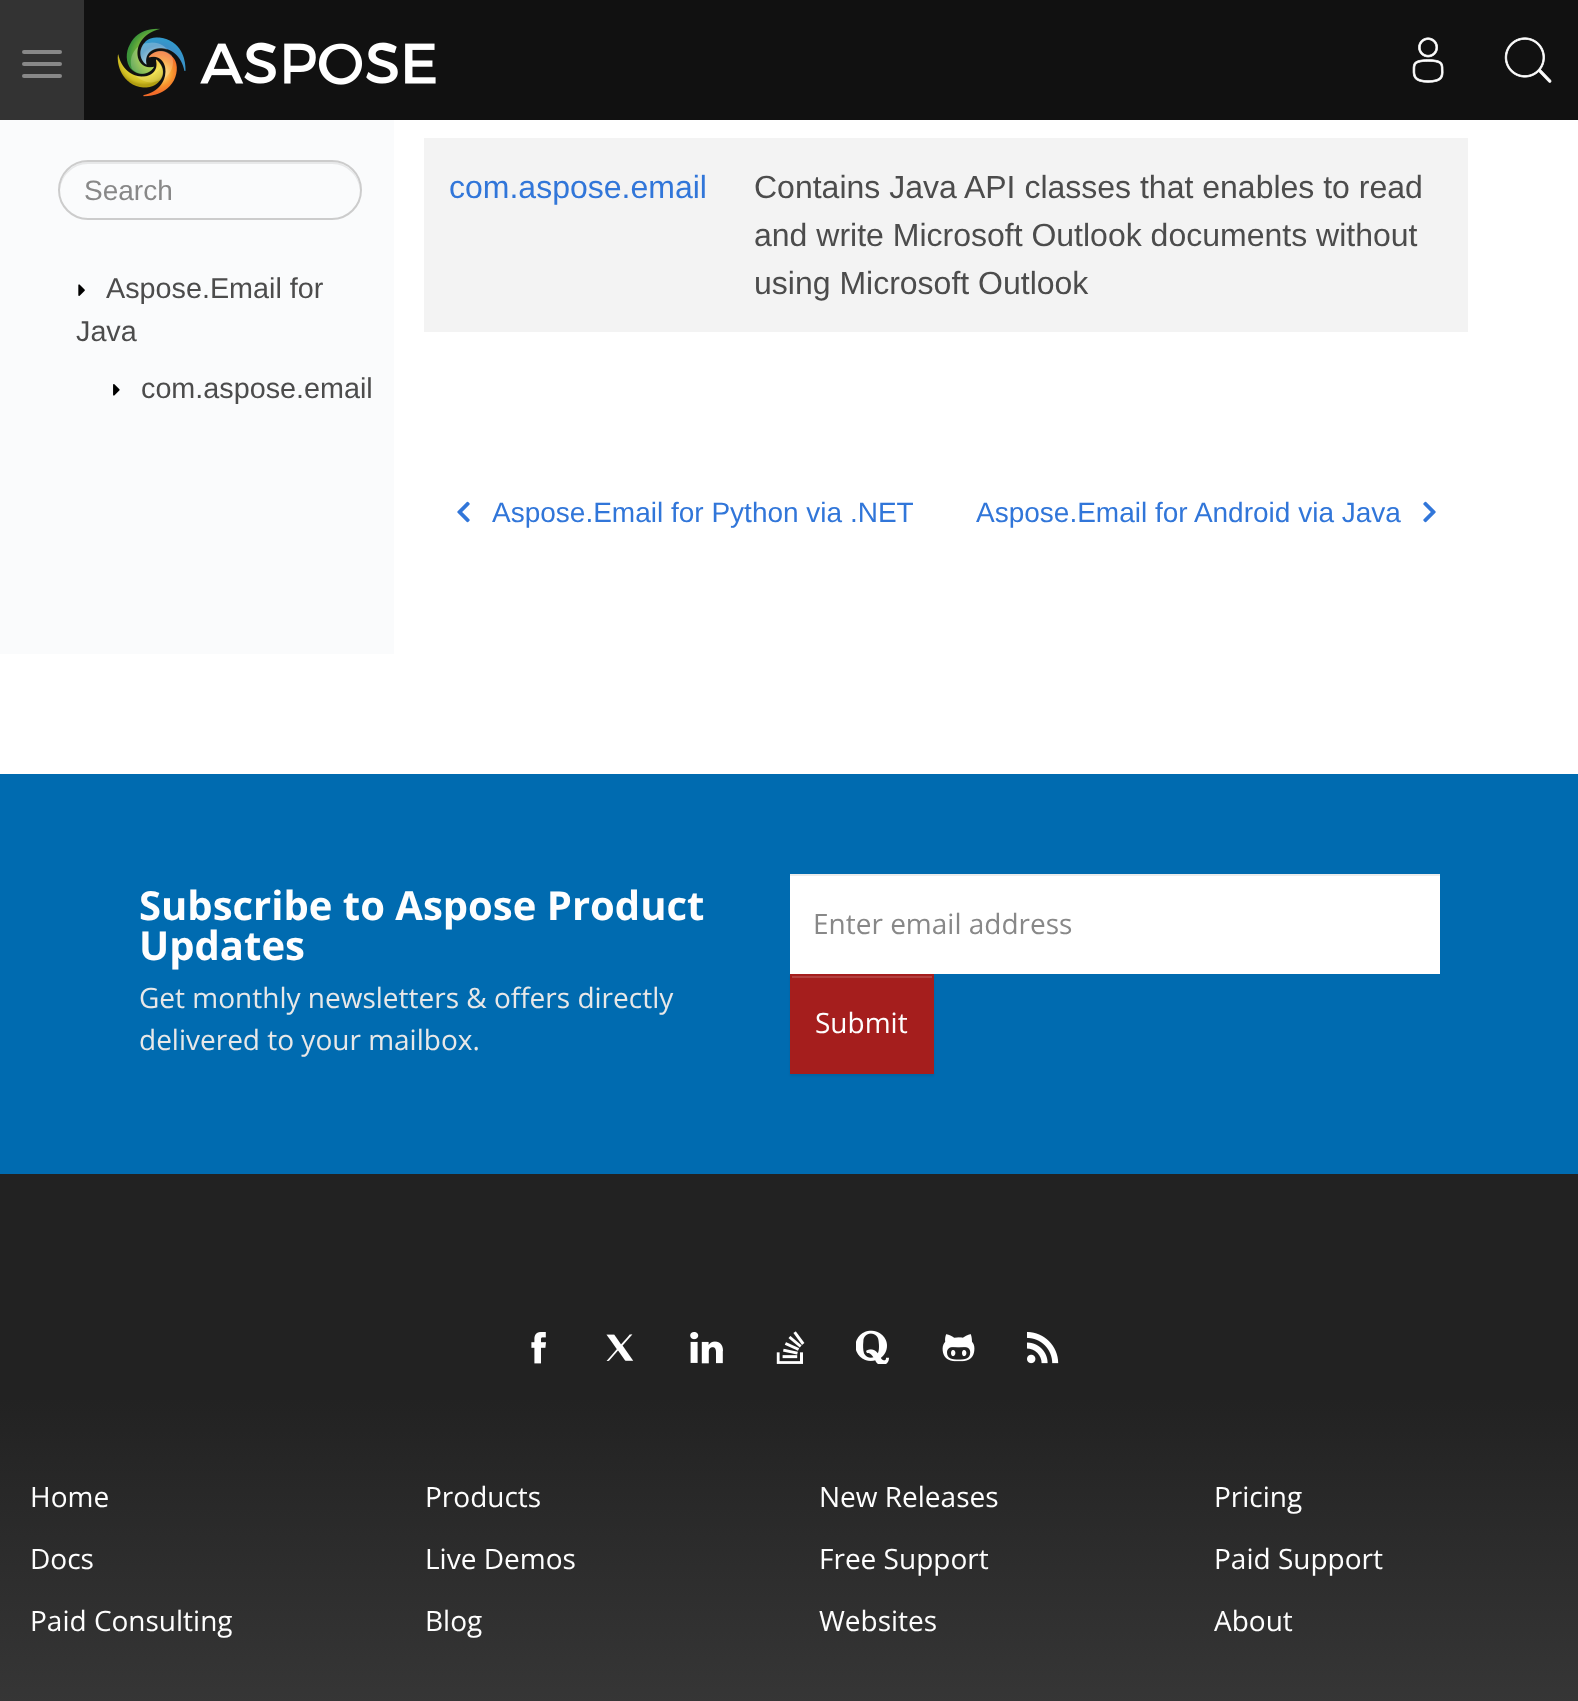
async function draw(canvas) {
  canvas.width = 1578;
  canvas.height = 1701;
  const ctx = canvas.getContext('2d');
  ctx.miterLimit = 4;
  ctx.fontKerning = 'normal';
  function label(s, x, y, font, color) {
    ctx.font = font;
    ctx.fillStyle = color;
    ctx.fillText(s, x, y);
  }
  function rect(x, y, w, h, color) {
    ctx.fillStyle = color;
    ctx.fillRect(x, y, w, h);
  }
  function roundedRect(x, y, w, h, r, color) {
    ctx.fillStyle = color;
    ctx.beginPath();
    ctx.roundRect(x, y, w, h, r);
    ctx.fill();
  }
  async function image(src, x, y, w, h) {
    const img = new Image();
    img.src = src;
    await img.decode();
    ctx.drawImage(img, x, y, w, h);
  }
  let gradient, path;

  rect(0, 0, 1578, 1701, '#fff');
  rect(84, 0, 1494, 120, '#111');
  rect(0, 0, 84, 120, '#333');
  roundedRect(22, 50, 40, 4, 2, '#888');
  roundedRect(22, 62, 40, 4, 2, '#888');
  roundedRect(22, 74, 40, 4, 2, '#888');
  await image('assets/img1.png', 117, 28, 319, 69);
  await image('assets/img2.png', 1412, 37, 32, 46);
  await image('assets/img3.png', 1504, 37, 48, 46);
  rect(0, 120, 394, 534, '#fafbfc');
  ctx.fillStyle = '#e7e8e9';
  path = new Path2D('M88 164H332C347 164 359 176 360 191V190C360 175 347 162 332 162H88C73 162 60 175 60 190V191C61 176 73 164 88 164Z');
  ctx.fill(path);
  ctx.beginPath();
  ctx.roundRect(59, 161, 302, 58, 29);
  ctx.strokeStyle = '#ccc';
  ctx.lineWidth = 2;
  ctx.stroke();
  label('Search', 84, 200, '28px Liberation Sans', '#888');
  await image('assets/img4.png', 78, 284, 7, 12);
  label('Aspose.Email for', 106, 298, '28.75px Liberation Sans', '#4c4c4c');
  label('Java', 76, 341, '28.75px Liberation Sans', '#4c4c4c');
  await image('assets/img5.png', 113, 384, 7, 12);
  label('com.aspose.email', 141, 398, '28.75px Liberation Sans', '#4c4c4c');
  rect(424, 138, 1044, 194, '#f3f3f3');
  label('com.aspose.email', 449, 198, '32px Liberation Sans', '#3176d9');
  label('Contains Java API classes that enables to read', 754, 198, '32px Liberation Sans', '#4c4c4c');
  label('and write Microsoft Outlook documents without', 754, 246, '32px Liberation Sans', '#4c4c4c');
  label('using Microsoft Outlook', 754, 294, '32px Liberation Sans', '#4c4c4c');
  await image('assets/img6.png', 457, 501, 13, 22);
  label('Aspose.Email for Python via .NET', 492, 522, '28px Liberation Sans', '#3176d9');
  label('Aspose.Email for Android via Java', 976, 522, '28px Liberation Sans', '#3176d9');
  await image('assets/img7.png', 1423, 501, 13, 22);
  rect(0, 774, 1578, 400, '#006bb0');
  label('Subscribe to Aspose Product', 139, 920, 'bold 40px Open Sans', '#fefefe');
  label('Updates', 139, 960, 'bold 40px Open Sans', '#fefefe');
  label('Get monthly newsletters & offers directly', 139, 1008, '28px Open Sans', '#e8e8e8');
  label('delivered to your mailbox.', 139, 1050, '28px Open Sans', '#e8e8e8');
  rect(790, 876, 650, 98, '#fff');
  rect(790, 874, 650, 2, '#ececec');
  label('Enter email address', 813, 934, '28px Open Sans', '#888');
  ctx.fillStyle = '#00000012';
  ctx.filter = 'blur(1px)';
  ctx.beginPath();
  ctx.rect(790, 976, 144, 100);
  ctx.fill();
  ctx.filter = 'none';
  rect(790, 974, 144, 100, '#a51e1d');
  rect(792, 976, 140, 2, '#b3403f');
  label('Submit', 815, 1033, '28px Open Sans', '#fefefe');
  gradient = ctx.createLinearGradient(789, 1174, 789, 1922);
  gradient.addColorStop(0.3, '#222');
  gradient.addColorStop(1, '#444');
  ctx.fillStyle = gradient;
  ctx.fillRect(0, 1174, 1578, 527);
  await image('assets/img8.png', 531, 1332, 15, 32);
  await image('assets/img9.png', 606, 1334, 28, 27);
  await image('assets/img10.png', 690, 1332, 33, 32);
  await image('assets/img11.png', 776, 1331, 29, 33);
  await image('assets/img12.png', 856, 1330, 33, 34);
  await image('assets/img13.png', 942, 1334, 33, 28);
  await image('assets/img14.png', 1027, 1331, 32, 33);
  label('Home', 30, 1507, '28px Open Sans', '#fefefe');
  label('Products', 425, 1507, '28px Open Sans', '#fefefe');
  label('New Releases', 819, 1507, '28px Open Sans', '#fefefe');
  label('Pricing', 1214, 1507, '28px Open Sans', '#fefefe');
  label('Docs', 30, 1569, '28px Open Sans', '#fefefe');
  label('Live Demos', 425, 1569, '28px Open Sans', '#fefefe');
  label('Free Support', 819, 1569, '28px Open Sans', '#fefefe');
  label('Paid Support', 1214, 1569, '28px Open Sans', '#fefefe');
  label('Paid Consulting', 30, 1631, '28px Open Sans', '#fefefe');
  label('Blog', 425, 1631, '28px Open Sans', '#fefefe');
  label('Websites', 819, 1631, '28px Open Sans', '#fefefe');
  label('About', 1214, 1631, '28px Open Sans', '#fefefe');
}

draw(document.querySelector('canvas'));
